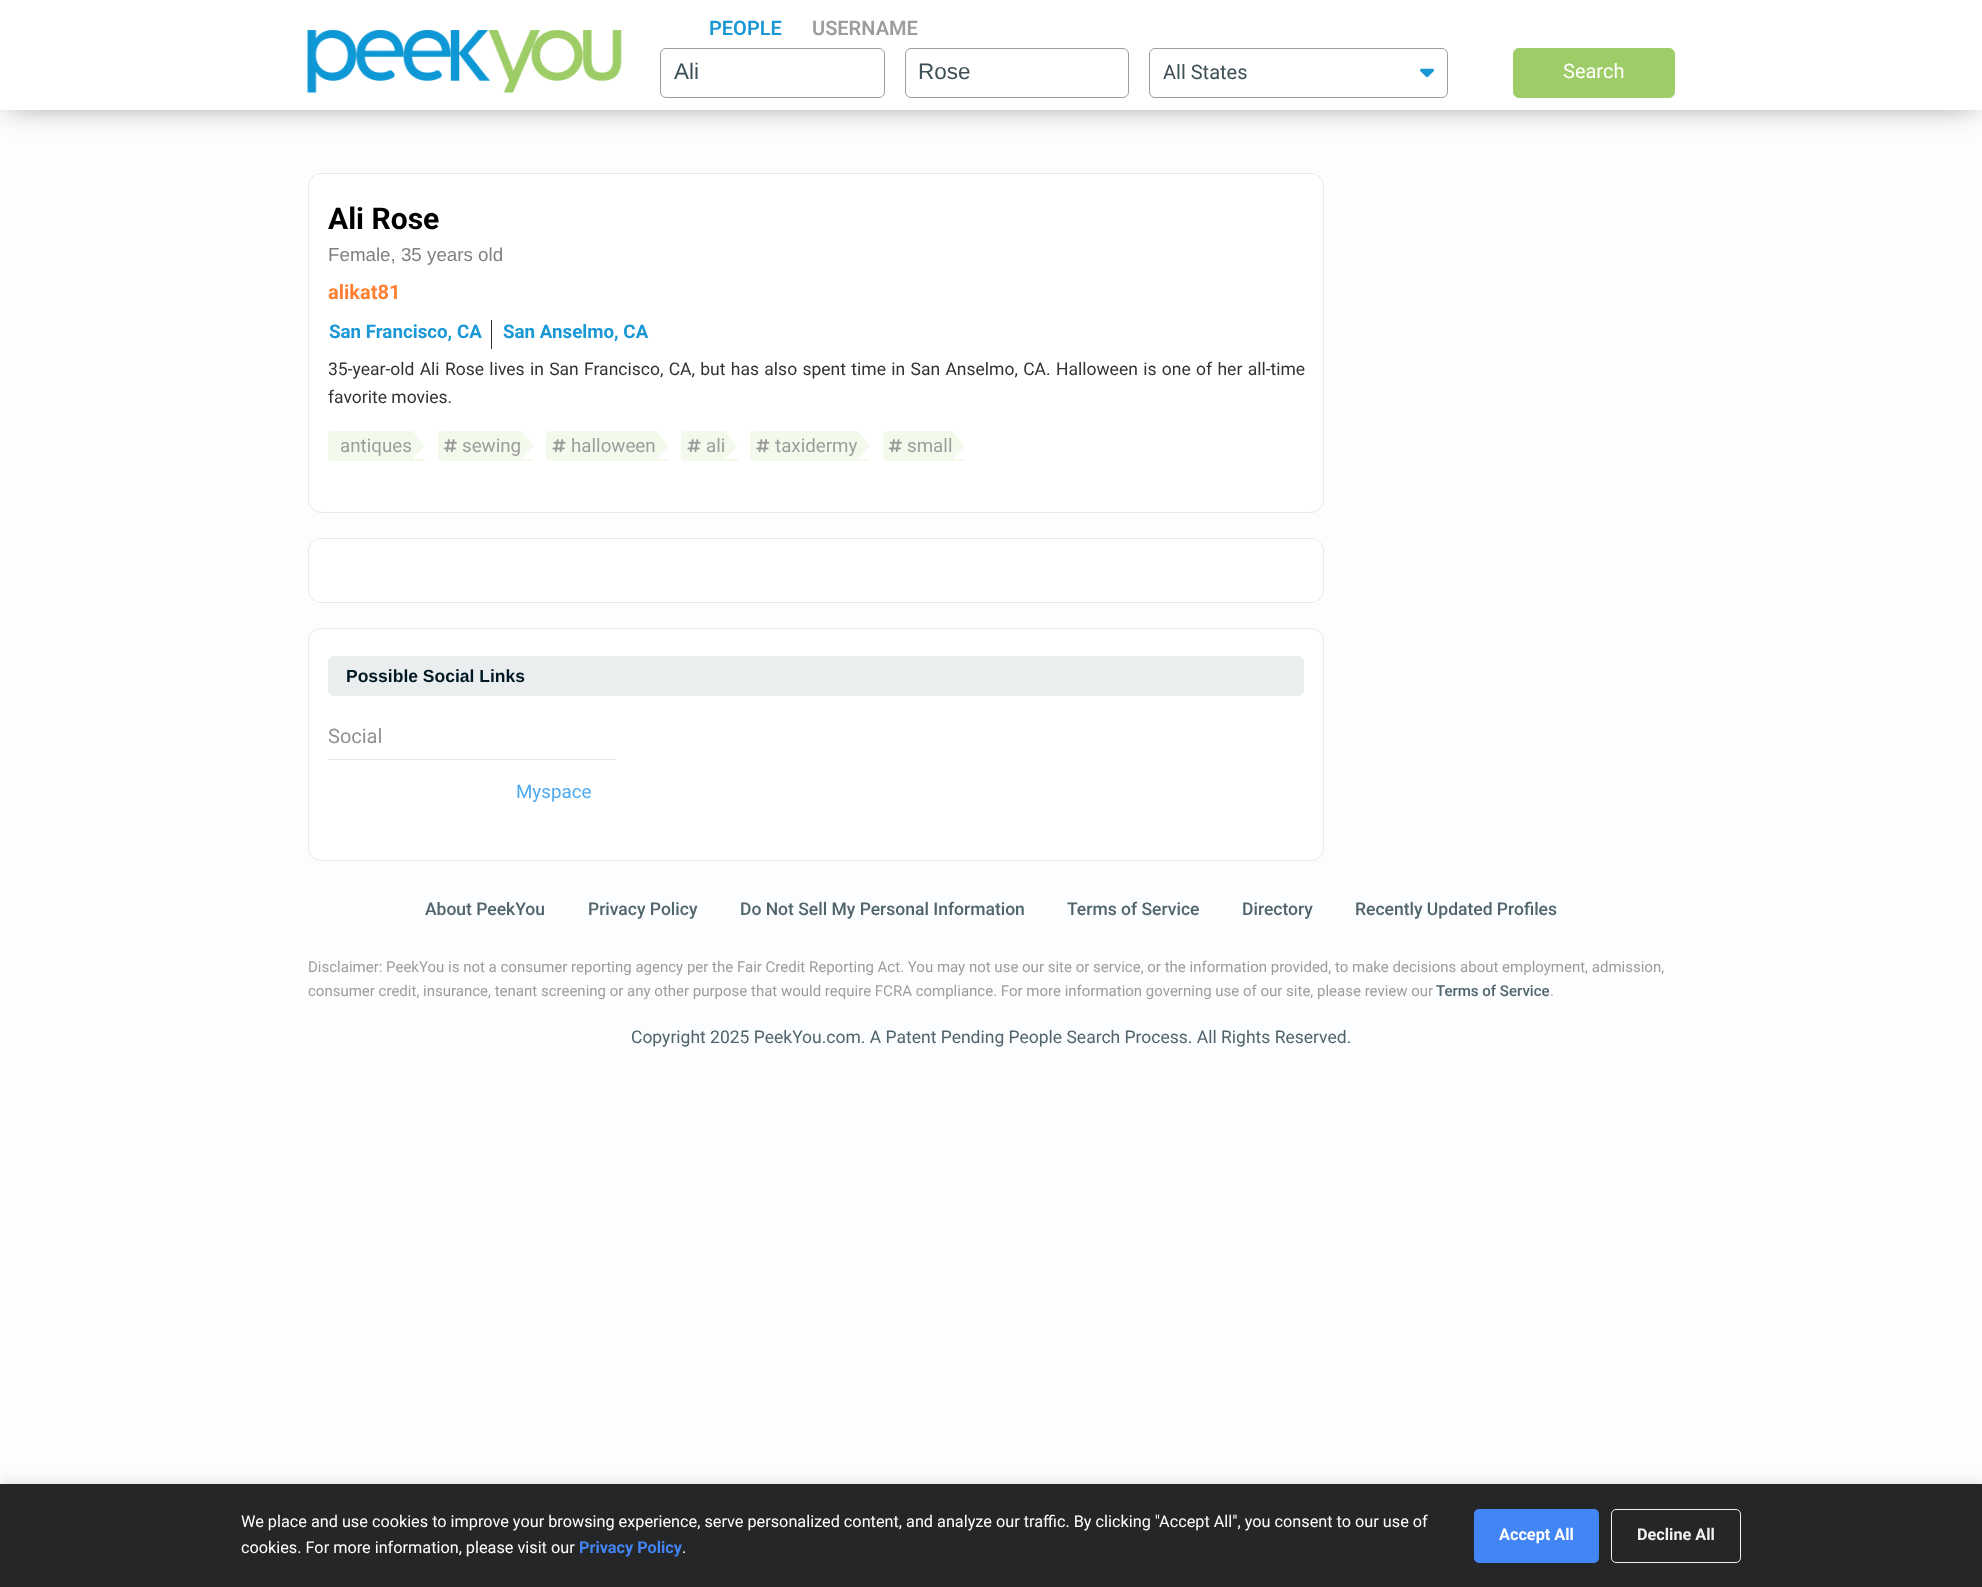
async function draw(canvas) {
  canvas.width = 1982;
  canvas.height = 1587;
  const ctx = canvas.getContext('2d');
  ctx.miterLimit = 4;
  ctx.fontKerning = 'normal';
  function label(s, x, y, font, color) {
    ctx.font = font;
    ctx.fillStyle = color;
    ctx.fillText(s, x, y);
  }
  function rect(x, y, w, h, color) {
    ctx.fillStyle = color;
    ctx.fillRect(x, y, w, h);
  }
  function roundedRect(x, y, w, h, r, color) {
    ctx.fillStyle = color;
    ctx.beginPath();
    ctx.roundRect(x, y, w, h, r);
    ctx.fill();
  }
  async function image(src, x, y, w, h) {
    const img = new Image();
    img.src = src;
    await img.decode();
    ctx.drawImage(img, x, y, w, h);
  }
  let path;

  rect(0, 0, 1982, 1587, '#fbfdff');
  ctx.fillStyle = '#00000080';
  ctx.filter = 'blur(15.5px)';
  ctx.beginPath();
  ctx.rect(8, 8, 1967, 95);
  ctx.fill();
  ctx.filter = 'none';
  rect(0, 0, 1982, 110, '#fff');
  await image('assets/img1.png', 307, 30, 315, 63);
  label('PEOPLE', 709, 35, '600 20px Roboto', '#1a98d5');
  label('USERNAME', 812, 35, '600 20px Roboto', '#9d9d9d');
  ctx.beginPath();
  ctx.roundRect(660.5, 48.5, 224, 49, 5.5);
  ctx.strokeStyle = '#9d9d9d';
  ctx.stroke();
  label('Ali', 674, 79, '22.5px Liberation Sans', '#3d4f56');
  ctx.beginPath();
  ctx.roundRect(905.5, 48.5, 223, 49, 5.5);
  ctx.stroke();
  label('Rose', 918, 79, '22.5px Liberation Sans', '#3d4f56');
  ctx.beginPath();
  ctx.roundRect(1149.5, 48.5, 298, 49, 5.5);
  ctx.stroke();
  label('All States', 1163, 79, '20px Roboto', '#3d4f56');
  await image('assets/img2.png', 1420, 68, 14, 10);
  ctx.fillStyle = '#9ecd67';
  ctx.beginPath();
  ctx.roundRect(1513.5, 48.5, 161, 49, 5.5);
  ctx.fill();
  ctx.strokeStyle = '#9ecd67';
  ctx.stroke();
  label('Search', 1563, 78, '20px Roboto', '#fff');
  ctx.beginPath();
  ctx.roundRect(308.5, 173.5, 1015, 339, 12.5);
  ctx.fill();
  ctx.strokeStyle = '#e8e8e8';
  ctx.stroke();
  label('Ali Rose', 328, 229, 'bold 30px Roboto', '#000');
  label('Female, 35 years old', 328, 261, '18.75px Liberation Sans', '#808080');
  label('alikat81', 328, 299, 'bold 20px Roboto', '#ff8033');
  label('San Francisco, CA', 329, 338, 'bold 18.75px Roboto', '#1a98d5');
  rect(491, 320, 1, 29, '#333');
  label('San Anselmo, CA', 503, 338, 'bold 18.75px Roboto', '#1a98d5');
  ctx.wordSpacing = '1px';
  label('35-year-old Ali Rose lives in San Francisco, CA, but has also spent time in San Anselmo, CA. Halloween is one of her all-time', 328, 375, '17.5px Roboto', '#333');
  ctx.wordSpacing = '0px';
  label('favorite movies.', 328, 403, '17.5px Roboto', '#333');
  ctx.fillStyle = '#f3faec';
  ctx.beginPath();
  ctx.roundRect(328, 431, 97, 30, [4, 0, 0, 4]);
  ctx.fill();
  label('antiques', 340, 452, '18.75px Roboto', '#9d9d9d');
  rect(413, 431, 12, 28, '#fff');
  ctx.fillStyle = '#f3faec';
  path = new Path2D('M412.5 459V431L425 446Z');
  ctx.fill(path);
  ctx.beginPath();
  ctx.roundRect(438, 431, 96, 30, [4, 0, 0, 4]);
  ctx.fill();
  await image('assets/img3.png', 443, 439, 14, 14);
  label('sewing', 462, 452, '18.75px Roboto', '#9d9d9d');
  rect(521, 431, 13, 28, '#fff');
  ctx.fillStyle = '#f3faec';
  path = new Path2D('M521 459V431L534 446Z');
  ctx.fill(path);
  ctx.beginPath();
  ctx.roundRect(546, 431, 123, 30, [4, 0, 0, 4]);
  ctx.fill();
  await image('assets/img4.png', 552, 439, 14, 14);
  label('halloween', 571, 452, '18.75px Roboto', '#9d9d9d');
  rect(656, 431, 13, 28, '#fff');
  ctx.fillStyle = '#f3faec';
  path = new Path2D('M656 459V431L669 446Z');
  ctx.fill(path);
  ctx.beginPath();
  ctx.roundRect(681, 431, 57, 30, [4, 0, 0, 4]);
  ctx.fill();
  await image('assets/img4.png', 687, 439, 14, 14);
  label('ali', 706, 452, '18.75px Roboto', '#9d9d9d');
  rect(725, 431, 13, 28, '#fff');
  ctx.fillStyle = '#f3faec';
  path = new Path2D('M725 459V431L737.5 446Z');
  ctx.fill(path);
  ctx.beginPath();
  ctx.roundRect(750, 431, 120, 30, [4, 0, 0, 4]);
  ctx.fill();
  await image('assets/img5.png', 756, 439, 14, 14);
  label('taxidermy', 775, 452, '18.75px Roboto', '#9d9d9d');
  rect(858, 431, 12, 28, '#fff');
  ctx.fillStyle = '#f3faec';
  path = new Path2D('M857.5 459V431L870 446Z');
  ctx.fill(path);
  ctx.beginPath();
  ctx.roundRect(883, 431, 82, 30, [4, 0, 0, 4]);
  ctx.fill();
  await image('assets/img3.png', 888, 439, 14, 14);
  label('small', 907, 452, '18.75px Roboto', '#9d9d9d');
  rect(953, 431, 12, 28, '#fff');
  ctx.fillStyle = '#f3faec';
  path = new Path2D('M952.5 459V431L965 446Z');
  ctx.fill(path);
  ctx.fillStyle = '#fff';
  ctx.beginPath();
  ctx.roundRect(308.5, 538.5, 1015, 64, 12.5);
  ctx.fill();
  ctx.stroke();
  ctx.beginPath();
  ctx.roundRect(308.5, 628.5, 1015, 232, 12.5);
  ctx.fill();
  ctx.stroke();
  roundedRect(328, 656, 976, 40, 6, '#ebeeee');
  label('Possible Social Links', 346, 682, 'bold 17.5px Liberation Sans', '#001925');
  rect(328, 759, 288, 1, '#e6e6e6');
  label('Social', 328, 743, '20px Roboto', '#929292');
  label('Myspace', 516, 798, '18.75px Roboto', '#4faaf0');
  label('About PeekYou', 425, 915, '500 17.5px Roboto', '#50646c');
  label('Privacy Policy', 588, 915, '500 17.5px Roboto', '#50646c');
  label('Do Not Sell My Personal Information', 740, 915, '500 17.5px Roboto', '#50646c');
  label('Terms of Service', 1067, 915, '500 17.5px Roboto', '#50646c');
  label('Directory', 1242, 915, '500 17.5px Roboto', '#50646c');
  label('Recently Updated Profiles', 1355, 915, '500 17.5px Roboto', '#50646c');
  label('Disclaimer: PeekYou is not a consumer reporting agency per the Fair Credit Reporting Act. You may not use our site or service, or the information provided, to make decisions about employment, admission,', 308, 972, '15px Roboto', '#9d9d9d');
  label('consumer credit, insurance, tenant screening or any other purpose that would require FCRA compliance. For more information governing use of our site, please review our', 308, 996, '15px Roboto', '#9d9d9d');
  label('Terms of Service', 1436, 996, '500 15px Roboto', '#50646c');
  label('.', 1550, 996, '15px Roboto', '#9d9d9d');
  label('Copyright 2025 PeekYou.com. A Patent Pending People Search Process. All Rights Reserved.', 631, 1043, '17.5px Roboto', '#50646c');
  ctx.fillStyle = '#0000001a';
  ctx.filter = 'blur(6px)';
  ctx.beginPath();
  ctx.rect(0, 1481, 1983, 104);
  ctx.fill();
  ctx.filter = 'none';
  rect(0, 1484, 1982, 103, '#252627');
  label('We place and use cookies to improve your browsing experience, serve personalized content, and analyze our traffic. By clicking "Accept All", you consent to our use of', 241, 1527, '16.25px Roboto', '#fff');
  label('cookies. For more information, please visit our', 241, 1553, '16.25px Roboto', '#fff');
  label('Privacy Policy', 579, 1553, 'bold 16.25px Roboto', '#4285f4');
  label('.', 682, 1553, '16.25px Roboto', '#fff');
  roundedRect(1474, 1509, 125, 54, 5, '#4285f4');
  label('Accept All', 1499, 1540, 'bold 16.25px Roboto', '#fff');
  ctx.beginPath();
  ctx.roundRect(1611.5, 1509.5, 129, 53, 4.5);
  ctx.strokeStyle = '#f1f1f1';
  ctx.stroke();
  label('Decline All', 1637, 1540, 'bold 16.25px Roboto', '#f1f1f1');
}

draw(document.querySelector('canvas'));
